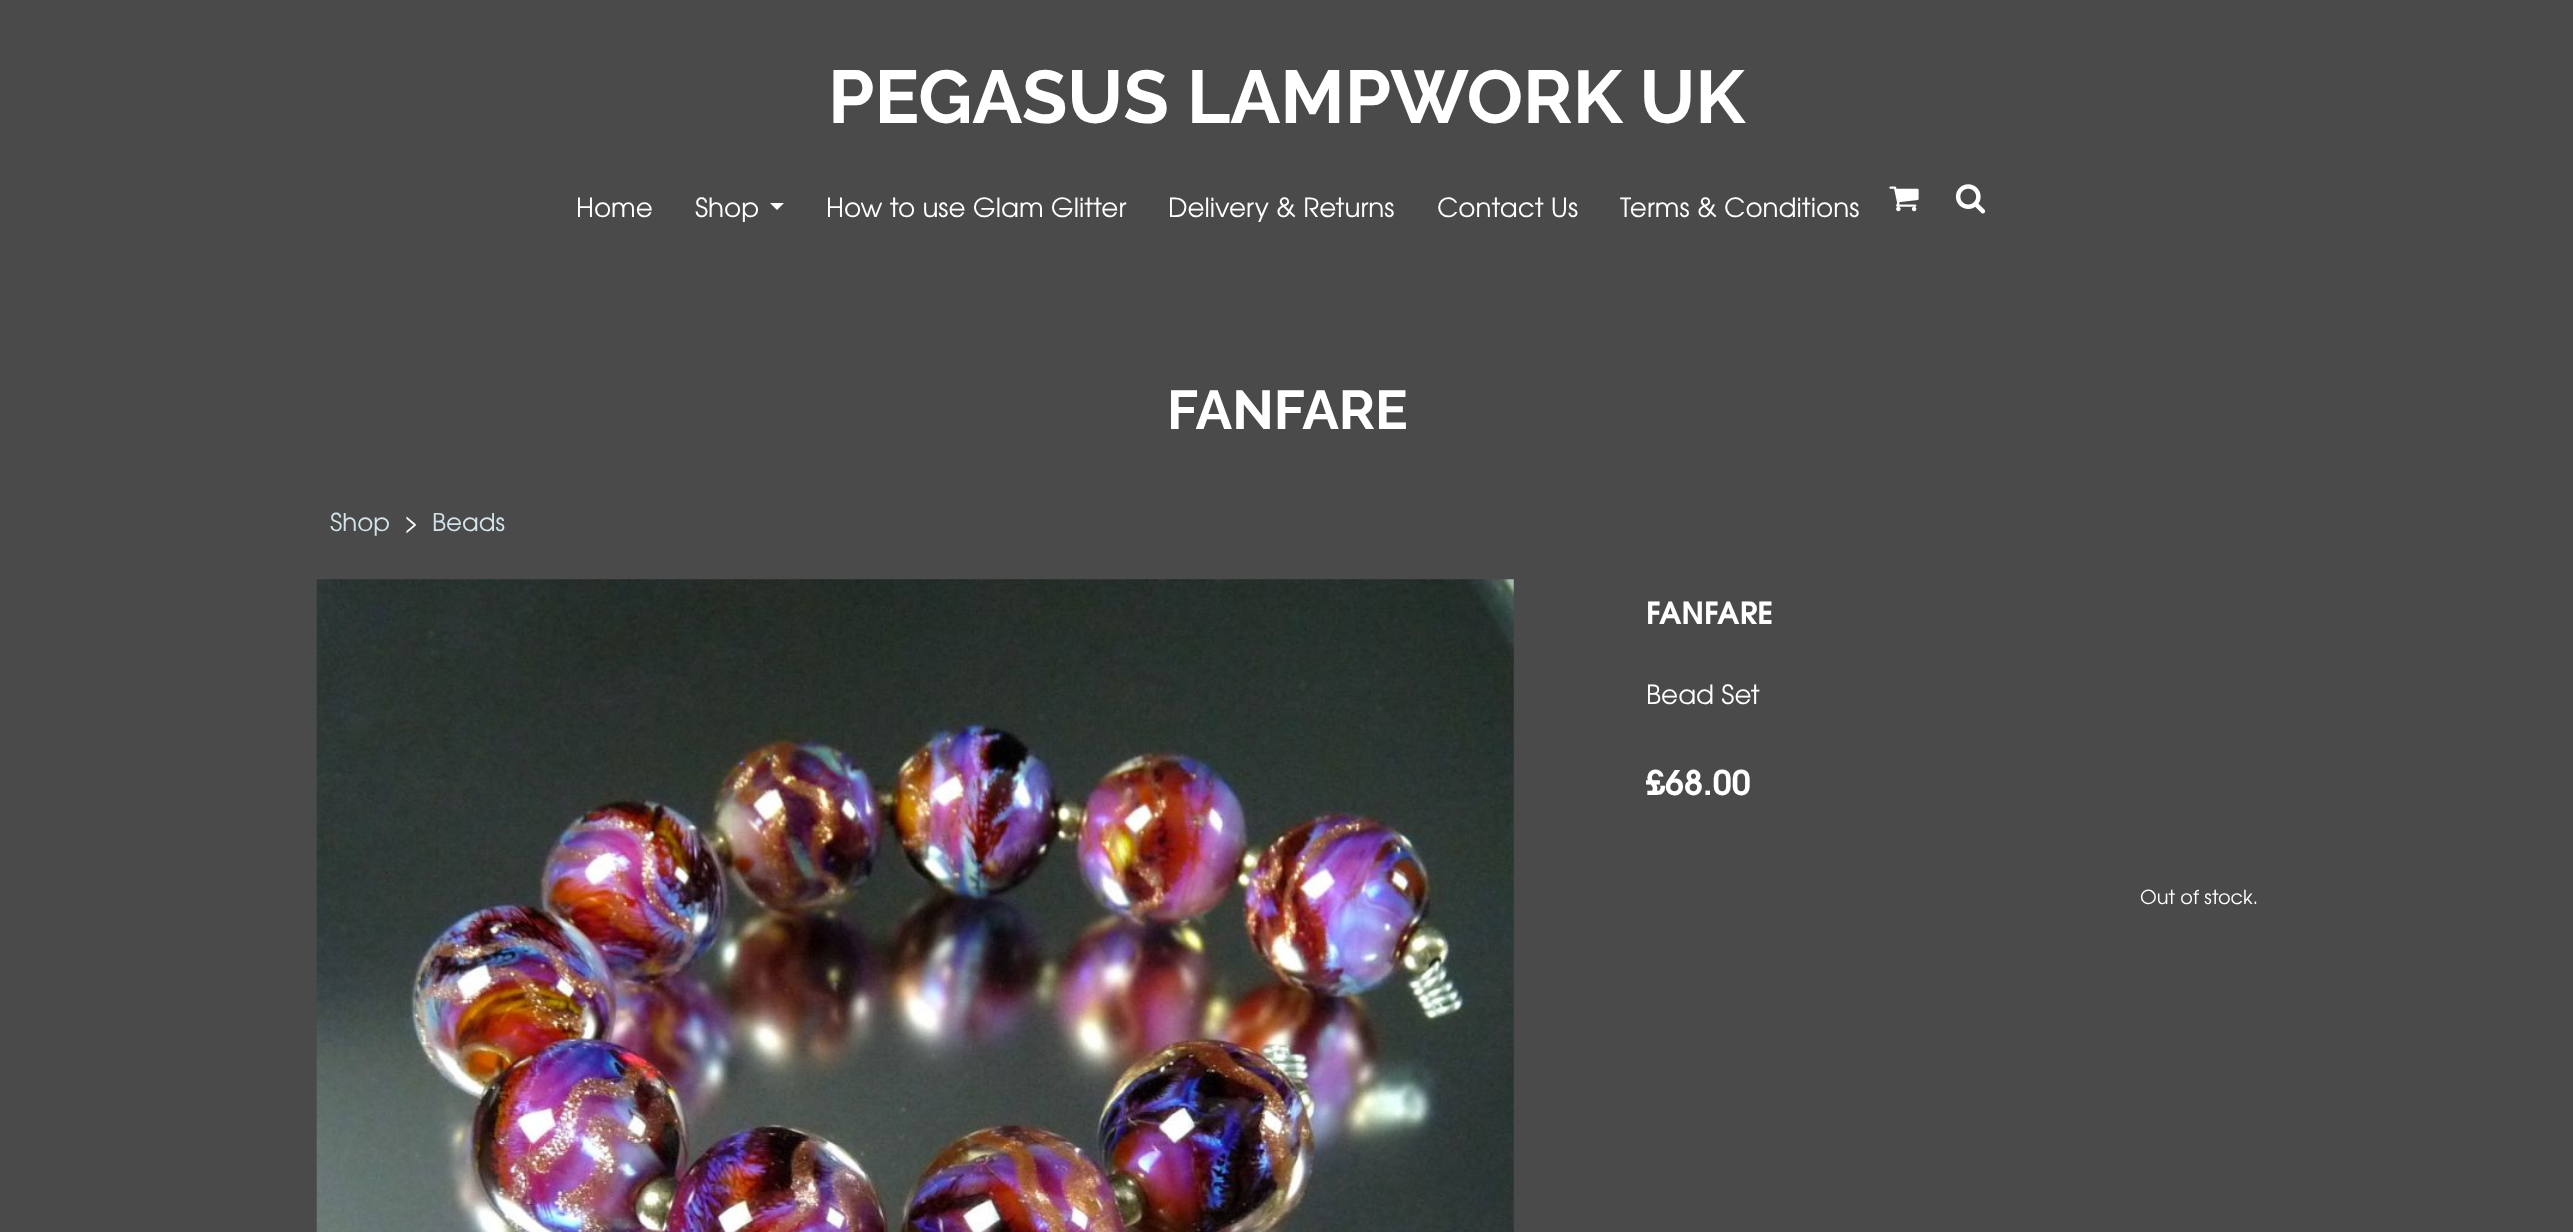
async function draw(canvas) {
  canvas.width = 2573;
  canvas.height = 1232;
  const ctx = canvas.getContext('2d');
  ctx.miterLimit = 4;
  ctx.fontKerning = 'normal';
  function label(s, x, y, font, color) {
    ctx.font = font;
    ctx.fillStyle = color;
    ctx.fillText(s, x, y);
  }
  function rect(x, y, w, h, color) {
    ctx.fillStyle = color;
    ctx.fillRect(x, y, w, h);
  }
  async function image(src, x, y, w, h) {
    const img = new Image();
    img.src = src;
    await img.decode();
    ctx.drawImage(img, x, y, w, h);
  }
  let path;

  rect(0, 0, 2573, 1232, '#4a4a4a');
  label('PEGASUS LAMPWORK UK', 828, 123, 'bold 74.5px Raleway', '#fff');
  label('Home', 576, 217, '26.25px TeX Gyre Adventor', '#fff');
  label('Shop', 695, 217, '26.25px TeX Gyre Adventor', '#fff');
  path = new Path2D('M770 203H784L777 210Z');
  ctx.fill(path);
  label('How to use Glam Glitter', 826, 217, '26.25px TeX Gyre Adventor', '#fff');
  label('Delivery & Returns', 1168, 217, '26.25px TeX Gyre Adventor', '#fff');
  label('Contact Us', 1437, 217, '26.25px TeX Gyre Adventor', '#fff');
  label('Terms & Conditions', 1620, 217, '26.25px TeX Gyre Adventor', '#fff');
  await image('assets/img1.png', 1889, 186, 30, 26);
  await image('assets/img2.png', 1955, 184, 31, 30);
  label('FANFARE', 1167, 429, 'bold 54.5px Raleway', '#fff');
  label('Shop', 330, 531, '24.5px TeX Gyre Adventor', '#d3e5eb');
  label('>', 404, 531, '24.5px TeX Gyre Adventor', '#fff');
  label('Beads', 432, 531, '24.5px TeX Gyre Adventor', '#d3e5eb');
  await image('assets/img3.png', 316, 579, 1198, 653);
  label('FANFARE', 1646, 624, 'bold 30.5px TeX Gyre Adventor', '#fff');
  label('Bead Set', 1646, 704, '26.25px TeX Gyre Adventor', '#fff');
  label('£68.00', 1646, 795, 'bold 34px TeX Gyre Adventor', '#fff');
  label('Out of stock.', 2140, 904, '19.25px TeX Gyre Adventor', '#fff');
}

draw(document.querySelector('canvas'));
